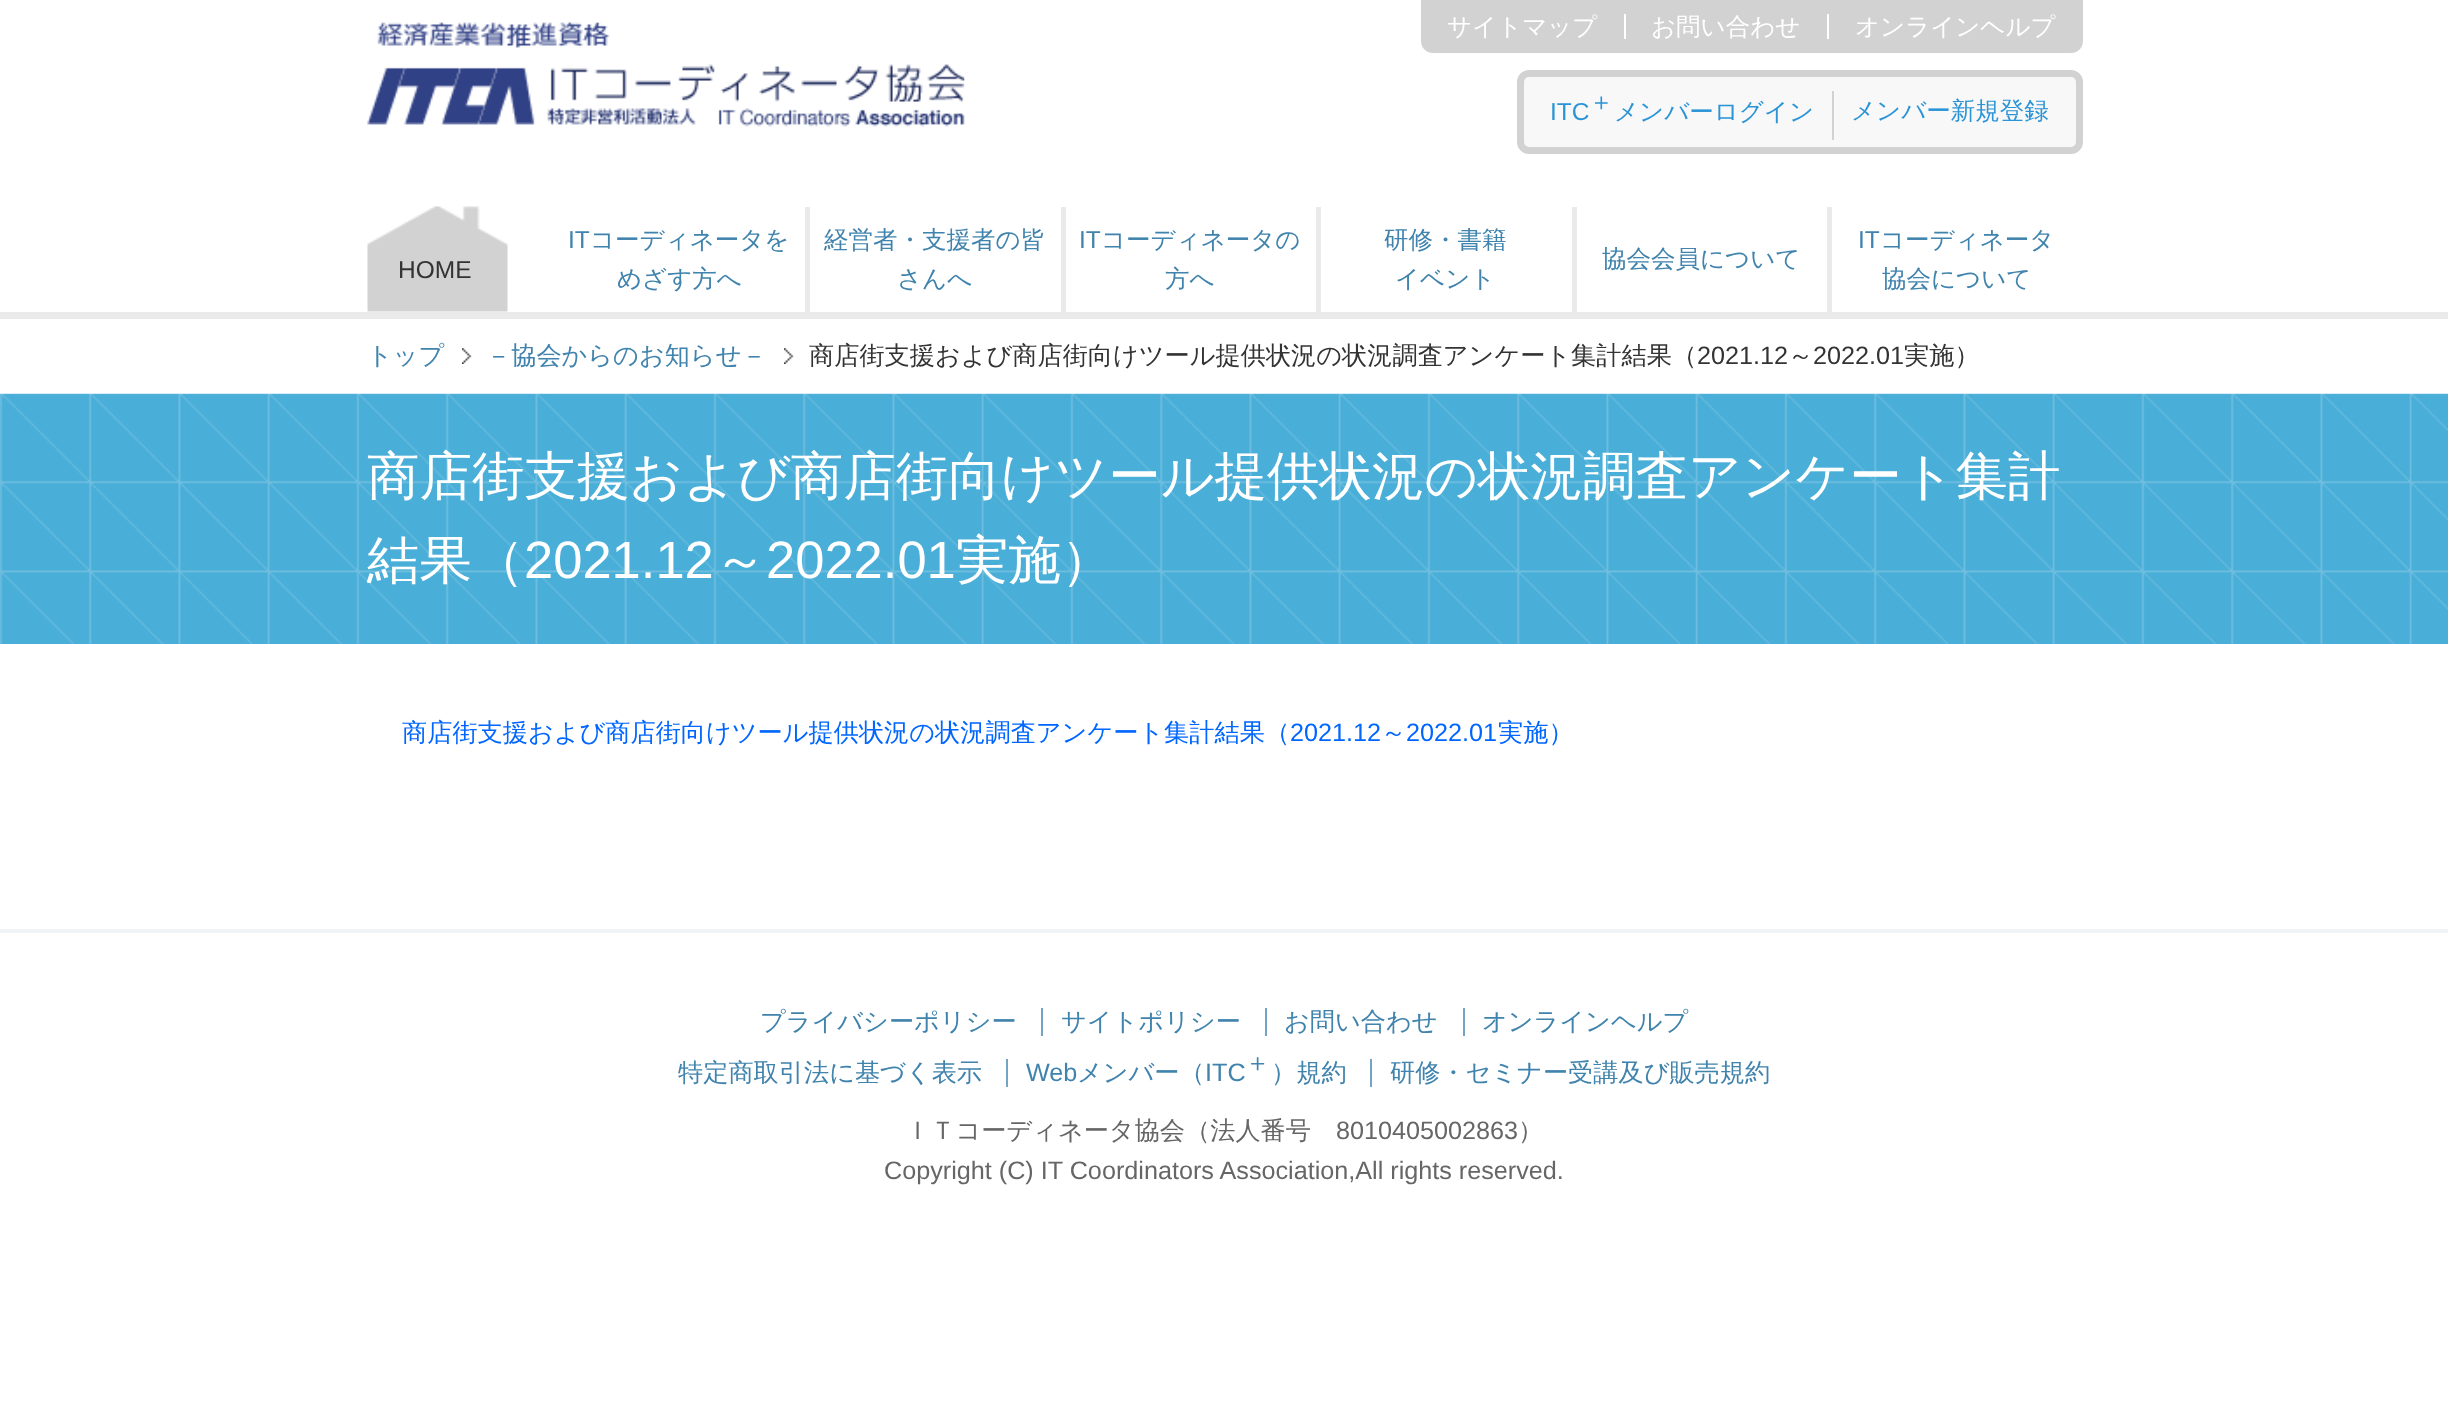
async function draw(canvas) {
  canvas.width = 2448;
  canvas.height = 1410;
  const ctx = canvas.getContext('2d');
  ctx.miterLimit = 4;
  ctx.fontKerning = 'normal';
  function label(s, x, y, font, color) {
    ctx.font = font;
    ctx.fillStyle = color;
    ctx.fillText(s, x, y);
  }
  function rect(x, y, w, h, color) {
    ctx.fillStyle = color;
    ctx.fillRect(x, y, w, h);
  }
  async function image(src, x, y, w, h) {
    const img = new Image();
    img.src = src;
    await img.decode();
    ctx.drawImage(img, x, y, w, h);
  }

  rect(0, 0, 2448, 1410, '#fff');
  rect(0, 312, 2448, 7, '#eaeaea');
  await image('assets/img1.png', 367, 21, 598, 106);
  ctx.fillStyle = '#d2d2d2';
  ctx.beginPath();
  ctx.roundRect(1421, 0, 662, 53, [0, 0, 12, 12]);
  ctx.fill();
  label('サイトマップ', 1447, 35, '500 24.5px WenQuanYi Zen Hei', '#fff');
  rect(1624, 14, 2, 25, '#fff');
  label('お問い合わせ', 1651, 35, '500 24.5px WenQuanYi Zen Hei', '#fff');
  rect(1827, 14, 2, 25, '#fff');
  label('オンラインヘルプ', 1855, 35, '500 24.5px WenQuanYi Zen Hei', '#fff');
  ctx.fillStyle = '#f8f8f8';
  ctx.beginPath();
  ctx.roundRect(1520.5, 73.5, 559, 77, 8.5);
  ctx.fill();
  ctx.strokeStyle = '#d2d2d2';
  ctx.lineWidth = 7;
  ctx.stroke();
  label('ITC', 1550, 120, '24.5px Liberation Sans', '#2a94d6');
  label('＋', 1589, 110, '500 24.5px WenQuanYi Zen Hei', '#2a94d6');
  label('メンバーログイン', 1614, 120, '500 24.5px WenQuanYi Zen Hei', '#2a94d6');
  rect(1832, 91, 2, 49, '#d2d2d2');
  label('メンバー新規登録', 1851, 119, '500 24.5px WenQuanYi Zen Hei', '#2a94d6');
  await image('assets/img2.png', 367, 206, 141, 106);
  label('HOME', 398, 278, '24.5px Liberation Sans', '#333');
  rect(805, 207, 5, 105, '#eaeaea');
  label('IT', 568, 248, '24.5px Liberation Sans', '#4083ad');
  label('コーディネータを', 590, 248, '500 24.5px WenQuanYi Zen Hei', '#4083ad');
  label('めざす方へ', 617, 287, '500 24.5px WenQuanYi Zen Hei', '#4083ad');
  rect(1061, 207, 5, 105, '#eaeaea');
  label('経営者・支援者の皆', 824, 248, '500 24.5px WenQuanYi Zen Hei', '#4083ad');
  label('さんへ', 897, 287, '500 24.5px WenQuanYi Zen Hei', '#4083ad');
  rect(1316, 207, 5, 105, '#eaeaea');
  label('IT', 1079, 248, '24.5px Liberation Sans', '#4083ad');
  label('コーディネータの', 1101, 248, '500 24.5px WenQuanYi Zen Hei', '#4083ad');
  label('方へ', 1165, 287, '500 24.5px WenQuanYi Zen Hei', '#4083ad');
  rect(1572, 207, 5, 105, '#eaeaea');
  label('研修・書籍', 1384, 248, '500 24.5px WenQuanYi Zen Hei', '#4083ad');
  label('イベント', 1395, 287, '500 24.5px WenQuanYi Zen Hei', '#4083ad');
  rect(1827, 207, 5, 105, '#eaeaea');
  label('協会会員について', 1602, 267, '500 24.5px WenQuanYi Zen Hei', '#4083ad');
  label('IT', 1858, 248, '24.5px Liberation Sans', '#4083ad');
  label('コーディネータ', 1880, 248, '500 24.5px WenQuanYi Zen Hei', '#4083ad');
  label('協会について', 1882, 287, '500 24.5px WenQuanYi Zen Hei', '#4083ad');
  label('トップ', 367, 364, '500 25.2px WenQuanYi Zen Hei', '#4083ad');
  await image('assets/img3.png', 462, 348, 10, 16);
  label('－協会からのお知らせ－', 486, 364, '500 25.2px WenQuanYi Zen Hei', '#4083ad');
  await image('assets/img3.png', 784, 348, 10, 16);
  label('商店街支援および商店街向けツール提供状況の状況調査アンケート集計結果（', 809, 364, '500 25.2px WenQuanYi Zen Hei', '#333');
  label('2021.12', 1697, 364, '25.2px Liberation Sans', '#333');
  label('～', 1788, 364, '500 25.2px WenQuanYi Zen Hei', '#333');
  label('2022.01', 1813, 364, '25.2px Liberation Sans', '#333');
  label('実施）', 1904, 364, '500 25.2px WenQuanYi Zen Hei', '#333');
  await image('assets/img4.png', 0, 393, 2448, 251);
  label('商店街支援および商店街向けツール提供状況の状況調査アンケート集計', 367, 494, '500 52.5px WenQuanYi Zen Hei', '#fff');
  label('結果（', 367, 578, '500 52.5px WenQuanYi Zen Hei', '#fff');
  label('2021.12', 524, 578, '52.5px Liberation Sans', '#fff');
  label('～', 714, 578, '500 52.5px WenQuanYi Zen Hei', '#fff');
  label('2022.01', 766, 578, '52.5px Liberation Sans', '#fff');
  label('実施）', 956, 578, '500 52.5px WenQuanYi Zen Hei', '#fff');
  label('商店街支援および商店街向けツール提供状況の状況調査アンケート集計結果（', 402, 741, '500 25.2px WenQuanYi Zen Hei', '#06f');
  label('2021.12', 1290, 741, '25.2px Liberation Sans', '#06f');
  label('～', 1381, 741, '500 25.2px WenQuanYi Zen Hei', '#06f');
  label('2022.01', 1406, 741, '25.2px Liberation Sans', '#06f');
  label('実施）', 1498, 741, '500 25.2px WenQuanYi Zen Hei', '#06f');
  rect(0, 929, 2448, 4, '#f0f4f6');
  label('プライバシーポリシー', 760, 1030, '500 25.2px WenQuanYi Zen Hei', '#4083ad');
  label('サイトポリシー', 1061, 1030, '500 25.2px WenQuanYi Zen Hei', '#4083ad');
  rect(1041, 1008, 2, 28, '#73a4c3');
  label('お問い合わせ', 1284, 1030, '500 25.2px WenQuanYi Zen Hei', '#4083ad');
  rect(1265, 1008, 2, 28, '#73a4c3');
  label('オンラインヘルプ', 1482, 1030, '500 25.2px WenQuanYi Zen Hei', '#4083ad');
  rect(1463, 1008, 2, 28, '#73a4c3');
  label('特定商取引法に基づく表示', 678, 1081, '500 25.2px WenQuanYi Zen Hei', '#4083ad');
  label('Web', 1026, 1081, '25.2px Liberation Sans', '#4083ad');
  rect(1006, 1059, 2, 28, '#73a4c3');
  label('メンバー（', 1077, 1081, '500 25.2px WenQuanYi Zen Hei', '#4083ad');
  label('ITC', 1205, 1081, '25.2px Liberation Sans', '#4083ad');
  label('＋', 1245, 1071, '500 25.2px WenQuanYi Zen Hei', '#4083ad');
  label('）規約', 1271, 1081, '500 25.2px WenQuanYi Zen Hei', '#4083ad');
  label('研修・セミナー受講及び販売規約', 1390, 1081, '500 25.2px WenQuanYi Zen Hei', '#4083ad');
  rect(1370, 1059, 2, 28, '#73a4c3');
  label('ＩＴコーディネータ協会（法人番号', 905, 1139, '500 25.2px WenQuanYi Zen Hei', '#666');
  label('8010405002863', 1336, 1139, '25.2px Liberation Sans', '#666');
  label('）', 1518, 1139, '500 25.2px WenQuanYi Zen Hei', '#666');
  label('Copyright (C) IT Coordinators Association,All rights reserved.', 884, 1179, '25.2px Liberation Sans', '#666');
}

draw(document.querySelector('canvas'));
